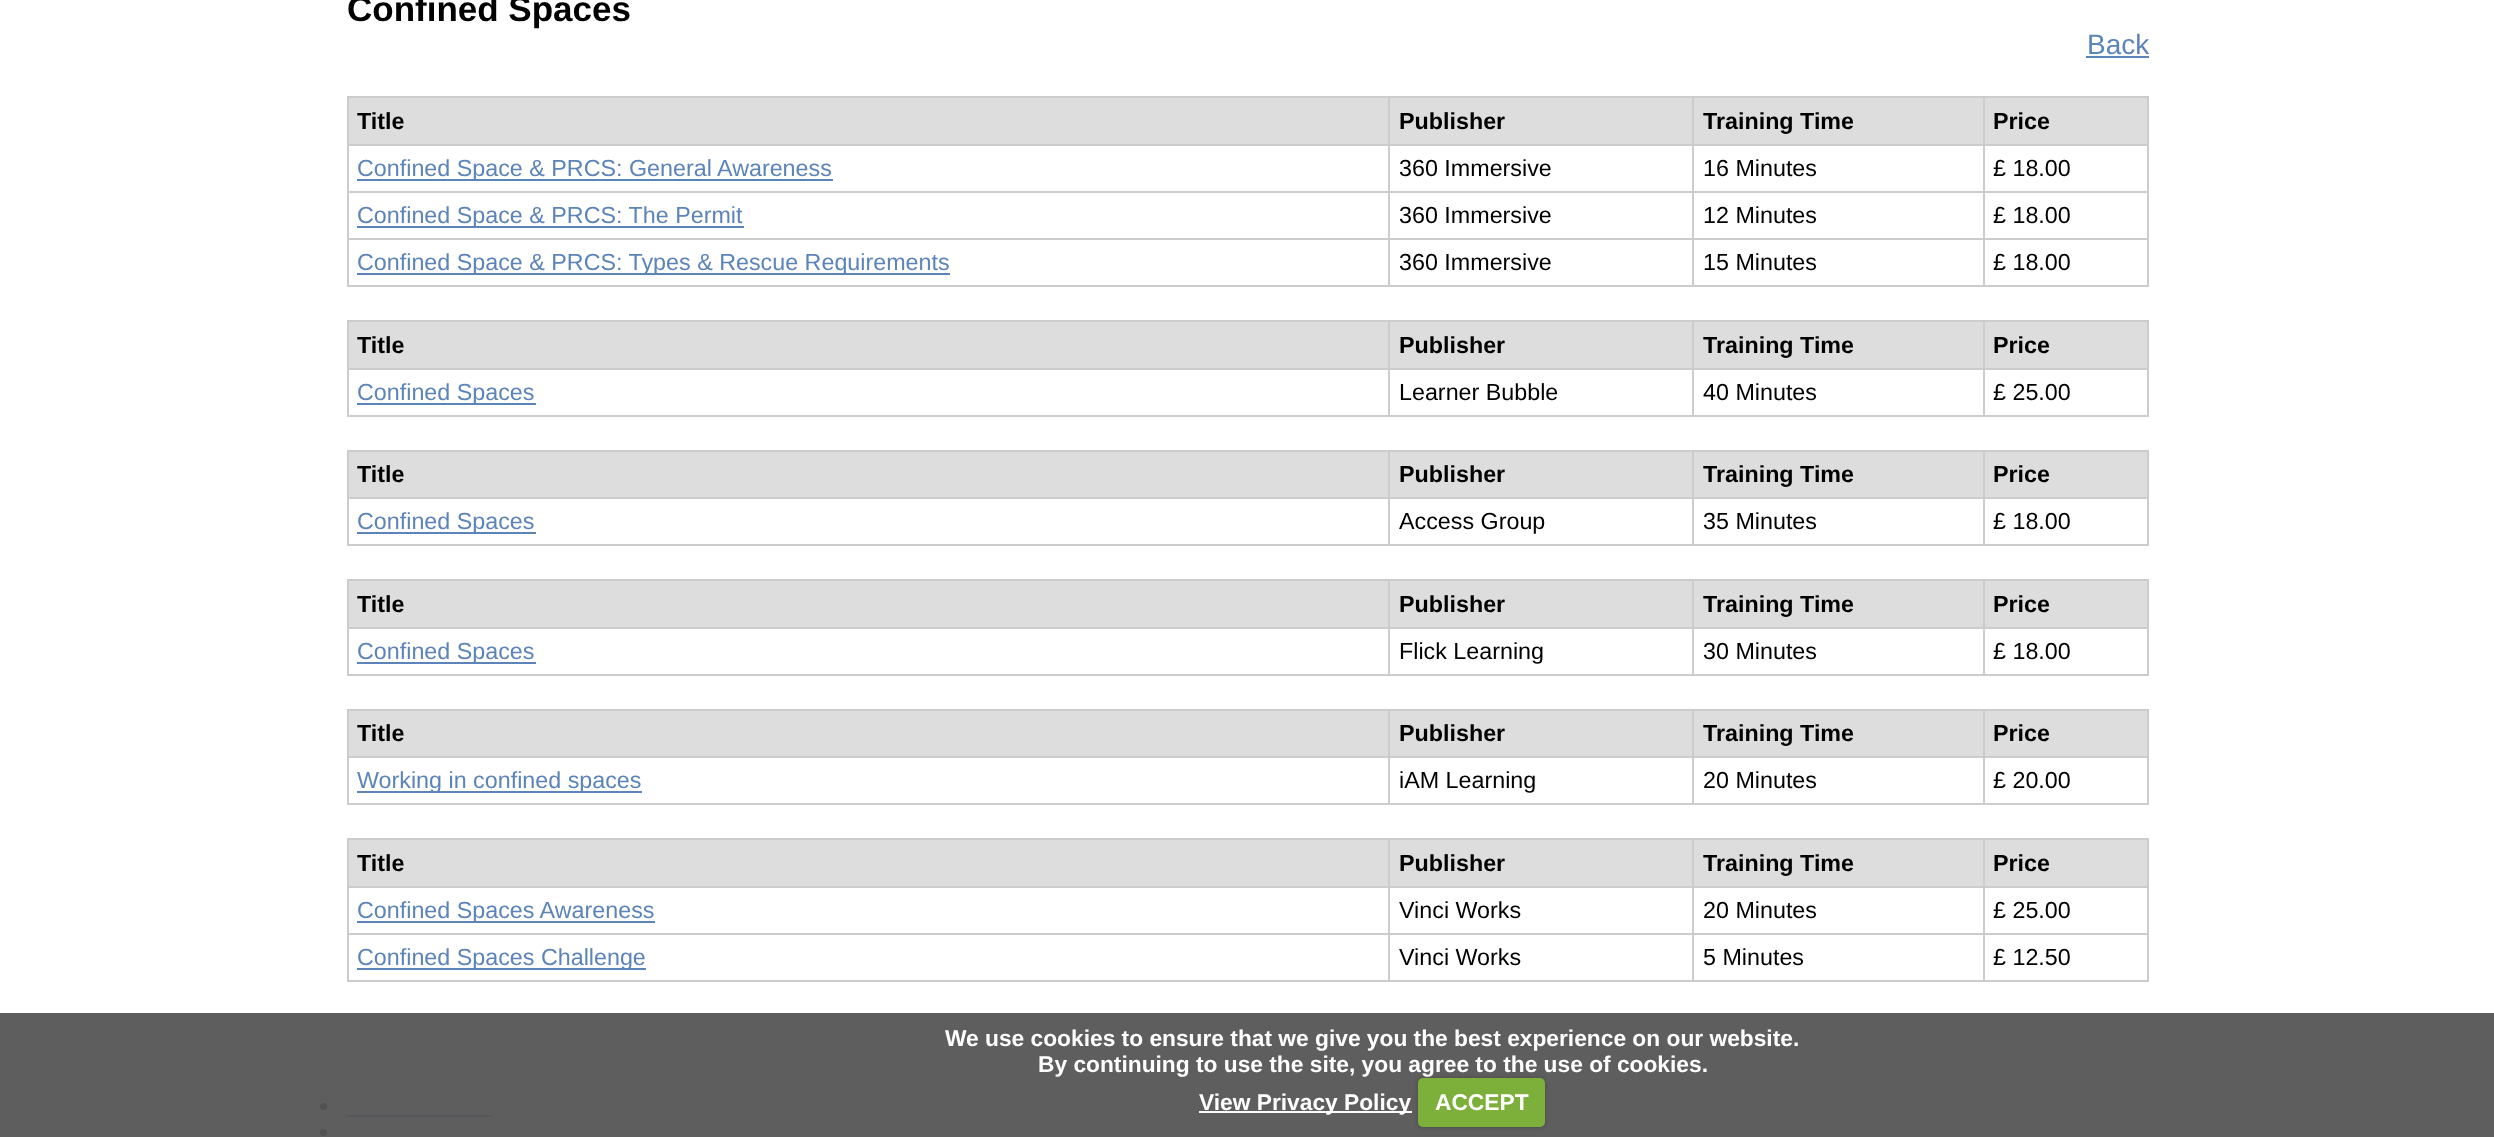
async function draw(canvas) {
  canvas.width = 2494;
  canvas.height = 1137;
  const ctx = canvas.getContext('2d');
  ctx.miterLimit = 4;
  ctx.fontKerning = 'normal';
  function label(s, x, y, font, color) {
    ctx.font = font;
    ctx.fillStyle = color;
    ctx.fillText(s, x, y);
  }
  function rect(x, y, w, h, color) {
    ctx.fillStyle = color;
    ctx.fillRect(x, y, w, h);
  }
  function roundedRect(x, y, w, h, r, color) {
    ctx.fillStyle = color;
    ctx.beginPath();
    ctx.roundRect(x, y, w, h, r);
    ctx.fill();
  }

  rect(0, 0, 2494, 1137, '#fff');
  rect(0, 1013, 2494, 124, '#5e5e5e');
  label('Confined Spaces', 347, 21, 'bold 35px Liberation Sans', '#000');
  label('Back', 2087, 54, '28px Liberation Sans', '#5c84b8');
  rect(2086, 56, 63, 2, '#5c84b8');
  rect(349, 98, 1039, 46, '#ddd');
  rect(1983, 96, 166, 2, '#ccc');
  rect(1983, 144, 166, 2, '#ccc');
  rect(1983, 191, 166, 2, '#ccc');
  rect(1983, 238, 166, 2, '#ccc');
  rect(2147, 238, 2, 49, '#ccc');
  rect(1983, 285, 166, 2, '#ccc');
  rect(1983, 238, 2, 49, '#ccc');
  rect(1692, 238, 293, 2, '#ccc');
  rect(1983, 191, 2, 49, '#ccc');
  rect(1692, 191, 293, 2, '#ccc');
  rect(1983, 144, 2, 49, '#ccc');
  rect(1692, 144, 293, 2, '#ccc');
  rect(1983, 96, 2, 49, '#ccc');
  rect(1692, 96, 293, 2, '#ccc');
  rect(1692, 285, 293, 2, '#ccc');
  rect(1692, 238, 2, 49, '#ccc');
  rect(1388, 238, 306, 2, '#ccc');
  rect(1692, 191, 2, 49, '#ccc');
  rect(1388, 191, 306, 2, '#ccc');
  rect(1692, 144, 2, 49, '#ccc');
  rect(1388, 144, 306, 2, '#ccc');
  rect(1692, 96, 2, 49, '#ccc');
  rect(1388, 96, 306, 2, '#ccc');
  rect(1388, 285, 306, 2, '#ccc');
  rect(1388, 238, 2, 49, '#ccc');
  rect(347, 238, 1043, 2, '#ccc');
  rect(1388, 191, 2, 49, '#ccc');
  rect(347, 191, 1043, 2, '#ccc');
  rect(1388, 144, 2, 49, '#ccc');
  rect(347, 144, 1043, 2, '#ccc');
  rect(1388, 96, 2, 49, '#ccc');
  rect(347, 96, 1043, 2, '#ccc');
  rect(347, 285, 1043, 2, '#ccc');
  rect(347, 238, 2, 49, '#ccc');
  rect(347, 191, 2, 49, '#ccc');
  rect(347, 144, 2, 49, '#ccc');
  rect(347, 96, 2, 49, '#ccc');
  label('Title', 357, 129, 'bold 23.3px Liberation Sans', '#000');
  rect(1390, 98, 302, 46, '#ddd');
  label('Publisher', 1399, 129, 'bold 23.3px Liberation Sans', '#000');
  rect(1694, 98, 289, 46, '#ddd');
  label('Training Time', 1703, 129, 'bold 23.3px Liberation Sans', '#000');
  rect(1985, 98, 162, 46, '#ddd');
  rect(2147, 191, 2, 49, '#ccc');
  rect(2147, 144, 2, 49, '#ccc');
  rect(2147, 96, 2, 49, '#ccc');
  label('Price', 1993, 129, 'bold 23.3px Liberation Sans', '#000');
  rect(357, 179, 476, 2, '#5c84b8');
  label('Confined Space & PRCS: General Awareness', 357, 176, '23.3px Liberation Sans', '#5c84b8');
  label('360 Immersive', 1399, 176, '23.3px Liberation Sans', '#000');
  label('16 Minutes', 1703, 176, '23.3px Liberation Sans', '#000');
  label('£ 18.00', 1993, 176, '23.3px Liberation Sans', '#000');
  rect(357, 226, 387, 2, '#5c84b8');
  label('Confined Space & PRCS: The Permit', 357, 223, '23.3px Liberation Sans', '#5c84b8');
  label('360 Immersive', 1399, 223, '23.3px Liberation Sans', '#000');
  label('12 Minutes', 1703, 223, '23.3px Liberation Sans', '#000');
  label('£ 18.00', 1993, 223, '23.3px Liberation Sans', '#000');
  rect(357, 273, 593, 2, '#5c84b8');
  label('Confined Space & PRCS: Types & Rescue Requirements', 357, 270, '23.3px Liberation Sans', '#5c84b8');
  label('360 Immersive', 1399, 270, '23.3px Liberation Sans', '#000');
  label('15 Minutes', 1703, 270, '23.3px Liberation Sans', '#000');
  label('£ 18.00', 1993, 270, '23.3px Liberation Sans', '#000');
  rect(349, 322, 1039, 46, '#ddd');
  rect(1983, 320, 166, 2, '#ccc');
  rect(1983, 368, 166, 2, '#ccc');
  rect(2147, 368, 2, 49, '#ccc');
  rect(1983, 415, 166, 2, '#ccc');
  rect(1983, 368, 2, 49, '#ccc');
  rect(1692, 368, 293, 2, '#ccc');
  rect(1983, 320, 2, 49, '#ccc');
  rect(1692, 320, 293, 2, '#ccc');
  rect(1692, 415, 293, 2, '#ccc');
  rect(1692, 368, 2, 49, '#ccc');
  rect(1388, 368, 306, 2, '#ccc');
  rect(1692, 320, 2, 49, '#ccc');
  rect(1388, 320, 306, 2, '#ccc');
  rect(1388, 415, 306, 2, '#ccc');
  rect(1388, 368, 2, 49, '#ccc');
  rect(347, 368, 1043, 2, '#ccc');
  rect(1388, 320, 2, 49, '#ccc');
  rect(347, 320, 1043, 2, '#ccc');
  rect(347, 415, 1043, 2, '#ccc');
  rect(347, 368, 2, 49, '#ccc');
  rect(347, 320, 2, 49, '#ccc');
  label('Title', 357, 353, 'bold 23.3px Liberation Sans', '#000');
  rect(1390, 322, 302, 46, '#ddd');
  label('Publisher', 1399, 353, 'bold 23.3px Liberation Sans', '#000');
  rect(1694, 322, 289, 46, '#ddd');
  label('Training Time', 1703, 353, 'bold 23.3px Liberation Sans', '#000');
  rect(1985, 322, 162, 46, '#ddd');
  rect(2147, 320, 2, 49, '#ccc');
  label('Price', 1993, 353, 'bold 23.3px Liberation Sans', '#000');
  rect(357, 403, 179, 2, '#5c84b8');
  label('Confined Spaces', 357, 400, '23.3px Liberation Sans', '#5c84b8');
  label('Learner Bubble', 1399, 400, '23.3px Liberation Sans', '#000');
  label('40 Minutes', 1703, 400, '23.3px Liberation Sans', '#000');
  label('£ 25.00', 1993, 400, '23.3px Liberation Sans', '#000');
  rect(349, 452, 1039, 45, '#ddd');
  rect(1983, 450, 166, 2, '#ccc');
  rect(1983, 497, 166, 2, '#ccc');
  rect(2147, 497, 2, 49, '#ccc');
  rect(1983, 544, 166, 2, '#ccc');
  rect(1983, 497, 2, 49, '#ccc');
  rect(1692, 497, 293, 2, '#ccc');
  rect(1983, 450, 2, 49, '#ccc');
  rect(1692, 450, 293, 2, '#ccc');
  rect(1692, 544, 293, 2, '#ccc');
  rect(1692, 497, 2, 49, '#ccc');
  rect(1388, 497, 306, 2, '#ccc');
  rect(1692, 450, 2, 49, '#ccc');
  rect(1388, 450, 306, 2, '#ccc');
  rect(1388, 544, 306, 2, '#ccc');
  rect(1388, 497, 2, 49, '#ccc');
  rect(347, 497, 1043, 2, '#ccc');
  rect(1388, 450, 2, 49, '#ccc');
  rect(347, 450, 1043, 2, '#ccc');
  rect(347, 544, 1043, 2, '#ccc');
  rect(347, 497, 2, 49, '#ccc');
  rect(347, 450, 2, 49, '#ccc');
  label('Title', 357, 482, 'bold 23.3px Liberation Sans', '#000');
  rect(1390, 452, 302, 45, '#ddd');
  label('Publisher', 1399, 482, 'bold 23.3px Liberation Sans', '#000');
  rect(1694, 452, 289, 45, '#ddd');
  label('Training Time', 1703, 482, 'bold 23.3px Liberation Sans', '#000');
  rect(1985, 452, 162, 45, '#ddd');
  rect(2147, 450, 2, 49, '#ccc');
  label('Price', 1993, 482, 'bold 23.3px Liberation Sans', '#000');
  rect(357, 532, 179, 2, '#5c84b8');
  label('Confined Spaces', 357, 529, '23.3px Liberation Sans', '#5c84b8');
  label('Access Group', 1399, 529, '23.3px Liberation Sans', '#000');
  label('35 Minutes', 1703, 529, '23.3px Liberation Sans', '#000');
  label('£ 18.00', 1993, 529, '23.3px Liberation Sans', '#000');
  rect(349, 581, 1039, 46, '#ddd');
  rect(1983, 579, 166, 2, '#ccc');
  rect(1983, 627, 166, 2, '#ccc');
  rect(2147, 627, 2, 49, '#ccc');
  rect(1983, 674, 166, 2, '#ccc');
  rect(1983, 627, 2, 49, '#ccc');
  rect(1692, 627, 293, 2, '#ccc');
  rect(1983, 579, 2, 49, '#ccc');
  rect(1692, 579, 293, 2, '#ccc');
  rect(1692, 674, 293, 2, '#ccc');
  rect(1692, 627, 2, 49, '#ccc');
  rect(1388, 627, 306, 2, '#ccc');
  rect(1692, 579, 2, 49, '#ccc');
  rect(1388, 579, 306, 2, '#ccc');
  rect(1388, 674, 306, 2, '#ccc');
  rect(1388, 627, 2, 49, '#ccc');
  rect(347, 627, 1043, 2, '#ccc');
  rect(1388, 579, 2, 49, '#ccc');
  rect(347, 579, 1043, 2, '#ccc');
  rect(347, 674, 1043, 2, '#ccc');
  rect(347, 627, 2, 49, '#ccc');
  rect(347, 579, 2, 49, '#ccc');
  label('Title', 357, 612, 'bold 23.3px Liberation Sans', '#000');
  rect(1390, 581, 302, 46, '#ddd');
  label('Publisher', 1399, 612, 'bold 23.3px Liberation Sans', '#000');
  rect(1694, 581, 289, 46, '#ddd');
  label('Training Time', 1703, 612, 'bold 23.3px Liberation Sans', '#000');
  rect(1985, 581, 162, 46, '#ddd');
  rect(2147, 579, 2, 49, '#ccc');
  label('Price', 1993, 612, 'bold 23.3px Liberation Sans', '#000');
  rect(357, 662, 179, 2, '#5c84b8');
  label('Confined Spaces', 357, 659, '23.3px Liberation Sans', '#5c84b8');
  label('Flick Learning', 1399, 659, '23.3px Liberation Sans', '#000');
  label('30 Minutes', 1703, 659, '23.3px Liberation Sans', '#000');
  label('£ 18.00', 1993, 659, '23.3px Liberation Sans', '#000');
  rect(349, 711, 1039, 45, '#ddd');
  rect(1983, 709, 166, 2, '#ccc');
  rect(1983, 756, 166, 2, '#ccc');
  rect(2147, 756, 2, 49, '#ccc');
  rect(1983, 803, 166, 2, '#ccc');
  rect(1983, 756, 2, 49, '#ccc');
  rect(1692, 756, 293, 2, '#ccc');
  rect(1983, 709, 2, 49, '#ccc');
  rect(1692, 709, 293, 2, '#ccc');
  rect(1692, 803, 293, 2, '#ccc');
  rect(1692, 756, 2, 49, '#ccc');
  rect(1388, 756, 306, 2, '#ccc');
  rect(1692, 709, 2, 49, '#ccc');
  rect(1388, 709, 306, 2, '#ccc');
  rect(1388, 803, 306, 2, '#ccc');
  rect(1388, 756, 2, 49, '#ccc');
  rect(347, 756, 1043, 2, '#ccc');
  rect(1388, 709, 2, 49, '#ccc');
  rect(347, 709, 1043, 2, '#ccc');
  rect(347, 803, 1043, 2, '#ccc');
  rect(347, 756, 2, 49, '#ccc');
  rect(347, 709, 2, 49, '#ccc');
  label('Title', 357, 741, 'bold 23.3px Liberation Sans', '#000');
  rect(1390, 711, 302, 45, '#ddd');
  label('Publisher', 1399, 741, 'bold 23.3px Liberation Sans', '#000');
  rect(1694, 711, 289, 45, '#ddd');
  label('Training Time', 1703, 741, 'bold 23.3px Liberation Sans', '#000');
  rect(1985, 711, 162, 45, '#ddd');
  rect(2147, 709, 2, 49, '#ccc');
  label('Price', 1993, 741, 'bold 23.3px Liberation Sans', '#000');
  rect(357, 791, 285, 2, '#5c84b8');
  label('Working in confined spaces', 357, 788, '23.3px Liberation Sans', '#5c84b8');
  label('iAM Learning', 1399, 788, '23.3px Liberation Sans', '#000');
  label('20 Minutes', 1703, 788, '23.3px Liberation Sans', '#000');
  label('£ 20.00', 1993, 788, '23.3px Liberation Sans', '#000');
  rect(349, 840, 1039, 46, '#ddd');
  rect(1983, 838, 166, 2, '#ccc');
  rect(1983, 886, 166, 2, '#ccc');
  rect(1983, 933, 166, 2, '#ccc');
  rect(2147, 933, 2, 49, '#ccc');
  rect(1983, 980, 166, 2, '#ccc');
  rect(1983, 933, 2, 49, '#ccc');
  rect(1692, 933, 293, 2, '#ccc');
  rect(1983, 886, 2, 49, '#ccc');
  rect(1692, 886, 293, 2, '#ccc');
  rect(1983, 838, 2, 49, '#ccc');
  rect(1692, 838, 293, 2, '#ccc');
  rect(1692, 980, 293, 2, '#ccc');
  rect(1692, 933, 2, 49, '#ccc');
  rect(1388, 933, 306, 2, '#ccc');
  rect(1692, 886, 2, 49, '#ccc');
  rect(1388, 886, 306, 2, '#ccc');
  rect(1692, 838, 2, 49, '#ccc');
  rect(1388, 838, 306, 2, '#ccc');
  rect(1388, 980, 306, 2, '#ccc');
  rect(1388, 933, 2, 49, '#ccc');
  rect(347, 933, 1043, 2, '#ccc');
  rect(1388, 886, 2, 49, '#ccc');
  rect(347, 886, 1043, 2, '#ccc');
  rect(1388, 838, 2, 49, '#ccc');
  rect(347, 838, 1043, 2, '#ccc');
  rect(347, 980, 1043, 2, '#ccc');
  rect(347, 933, 2, 49, '#ccc');
  rect(347, 886, 2, 49, '#ccc');
  rect(347, 838, 2, 49, '#ccc');
  label('Title', 357, 871, 'bold 23.3px Liberation Sans', '#000');
  rect(1390, 840, 302, 46, '#ddd');
  label('Publisher', 1399, 871, 'bold 23.3px Liberation Sans', '#000');
  rect(1694, 840, 289, 46, '#ddd');
  label('Training Time', 1703, 871, 'bold 23.3px Liberation Sans', '#000');
  rect(1985, 840, 162, 46, '#ddd');
  rect(2147, 886, 2, 49, '#ccc');
  rect(2147, 838, 2, 49, '#ccc');
  label('Price', 1993, 871, 'bold 23.3px Liberation Sans', '#000');
  rect(357, 921, 298, 2, '#5c84b8');
  label('Confined Spaces Awareness', 357, 918, '23.3px Liberation Sans', '#5c84b8');
  label('Vinci Works', 1399, 918, '23.3px Liberation Sans', '#000');
  label('20 Minutes', 1703, 918, '23.3px Liberation Sans', '#000');
  label('£ 25.00', 1993, 918, '23.3px Liberation Sans', '#000');
  rect(357, 968, 289, 2, '#5c84b8');
  label('Confined Spaces Challenge', 357, 965, '23.3px Liberation Sans', '#5c84b8');
  label('Vinci Works', 1399, 965, '23.3px Liberation Sans', '#000');
  label('5 Minutes', 1703, 965, '23.3px Liberation Sans', '#000');
  label('£ 12.50', 1993, 965, '23.3px Liberation Sans', '#000');
  ctx.fillStyle = '#525252';
  ctx.beginPath();
  ctx.arc(323.5, 1106.5, 3.5, 0, 2 * Math.PI);
  ctx.fill();
  rect(347, 1115, 145, 2, '#56585b');
  ctx.fillStyle = '#525252';
  ctx.beginPath();
  ctx.arc(323.5, 1132.5, 3.5, 0, 2 * Math.PI);
  ctx.fill();
  label('We use cookies to ensure that we give you the best experience on our website.', 945, 1046, 'bold 22.75px Liberation Sans', '#fff');
  label('By continuing to use the site, you agree to the use of cookies.', 1038, 1072, 'bold 22.75px Liberation Sans', '#fff');
  rect(1199, 1111, 213, 2, '#fff');
  label('View Privacy Policy', 1199, 1110, 'bold 22.75px Liberation Sans', '#fff');
  ctx.fillStyle = '#00000040';
  ctx.filter = 'blur(2px)';
  ctx.beginPath();
  ctx.roundRect(1418, 1078, 127, 49, 5);
  ctx.fill();
  ctx.filter = 'none';
  roundedRect(1418, 1078, 127, 49, 5, '#7daf3b');
  label('ACCEPT', 1435, 1110, 'bold 22.75px Liberation Sans', '#fff');
}

draw(document.querySelector('canvas'));
